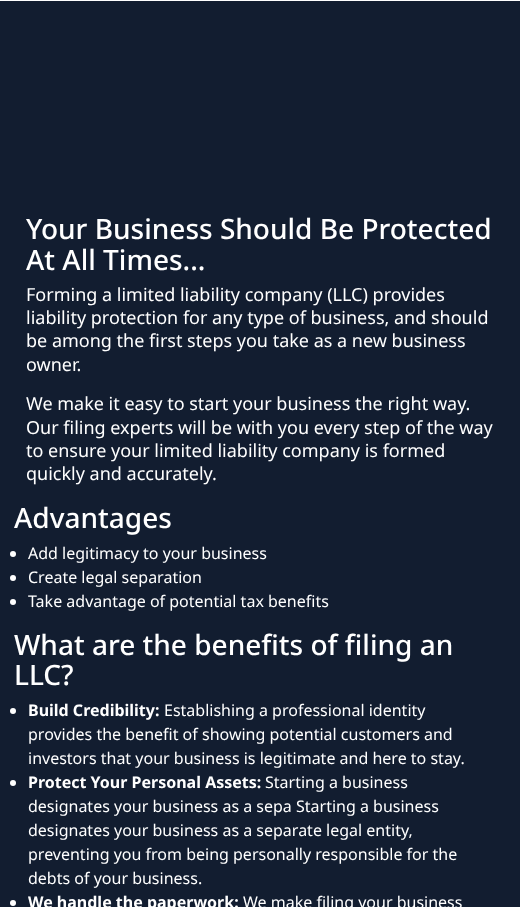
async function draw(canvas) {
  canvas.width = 520;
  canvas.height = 907;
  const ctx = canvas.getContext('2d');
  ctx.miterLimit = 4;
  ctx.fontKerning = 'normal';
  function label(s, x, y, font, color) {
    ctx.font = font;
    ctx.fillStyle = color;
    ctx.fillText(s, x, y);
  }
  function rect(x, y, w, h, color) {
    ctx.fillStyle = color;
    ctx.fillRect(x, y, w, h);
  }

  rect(0, 0, 520, 907, '#121d30');
  rect(0, 0, 520, 1, '#fff');
  label('Your Business Should Be Protected', 26, 239, '500 28px Noto Sans', '#fff');
  label('At All Times...', 26, 270, '500 28px Noto Sans', '#fff');
  label('Forming a limited liability company (LLC) provides', 26, 301, '18px Noto Sans', '#fff');
  label('liability protection for any type of business, and should', 26, 324, '18px Noto Sans', '#fff');
  label('be among the first steps you take as a new business', 26, 347, '18px Noto Sans', '#fff');
  label('owner.', 26, 371, '18px Noto Sans', '#fff');
  label('We make it easy to start your business the right way.', 26, 410, '18px Noto Sans', '#fff');
  label('Our filing experts will be with you every step of the way', 26, 434, '18px Noto Sans', '#fff');
  label('to ensure your limited liability company is formed', 26, 457, '18px Noto Sans', '#fff');
  label('quickly and accurately.', 26, 480, '18px Noto Sans', '#fff');
  label('Advantages', 14, 528, '500 28px Noto Sans', '#fff');
  ctx.beginPath();
  ctx.arc(13, 554, 3, 0, 2 * Math.PI);
  ctx.fill();
  label('Add legitimacy to your business', 28, 559, '16px Noto Sans', '#fff');
  ctx.beginPath();
  ctx.arc(13, 578, 3, 0, 2 * Math.PI);
  ctx.fill();
  label('Create legal separation', 28, 583, '16px Noto Sans', '#fff');
  ctx.beginPath();
  ctx.arc(13, 602, 3, 0, 2 * Math.PI);
  ctx.fill();
  label('Take advantage of potential tax benefits', 28, 607, '16px Noto Sans', '#fff');
  label('What are the benefits of filing an', 14, 655, '500 28px Noto Sans', '#fff');
  label('LLC?', 14, 685, '500 28px Noto Sans', '#fff');
  ctx.beginPath();
  ctx.arc(13, 711, 3, 0, 2 * Math.PI);
  ctx.fill();
  label('Build Credibility:', 28, 716, 'bold 16px Noto Sans', '#fff');
  label('Establishing a professional identity', 164, 716, '16px Noto Sans', '#fff');
  label('provides the benefit of showing potential customers and', 28, 740, '16px Noto Sans', '#fff');
  label('investors that your business is legitimate and here to stay.', 28, 764, '16px Noto Sans', '#fff');
  ctx.beginPath();
  ctx.arc(13, 783, 3, 0, 2 * Math.PI);
  ctx.fill();
  label('Protect Your Personal Assets:', 28, 788, 'bold 16px Noto Sans', '#fff');
  label('Starting a business', 265, 788, '16px Noto Sans', '#fff');
  label('designates your business as a sepa Starting a business', 28, 812, '16px Noto Sans', '#fff');
  label('designates your business as a separate legal entity,', 28, 836, '16px Noto Sans', '#fff');
  label('preventing you from being personally responsible for the', 28, 860, '16px Noto Sans', '#fff');
  label('debts of your business.', 28, 884, '16px Noto Sans', '#fff');
  ctx.beginPath();
  ctx.arc(13, 903, 3, 0, 2 * Math.PI);
  ctx.fill();
  label('We handle the paperwork:', 28, 908, 'bold 16px Noto Sans', '#fff');
  label('We make filing your business', 243, 908, '16px Noto Sans', '#fff');
}

draw(document.querySelector('canvas'));
